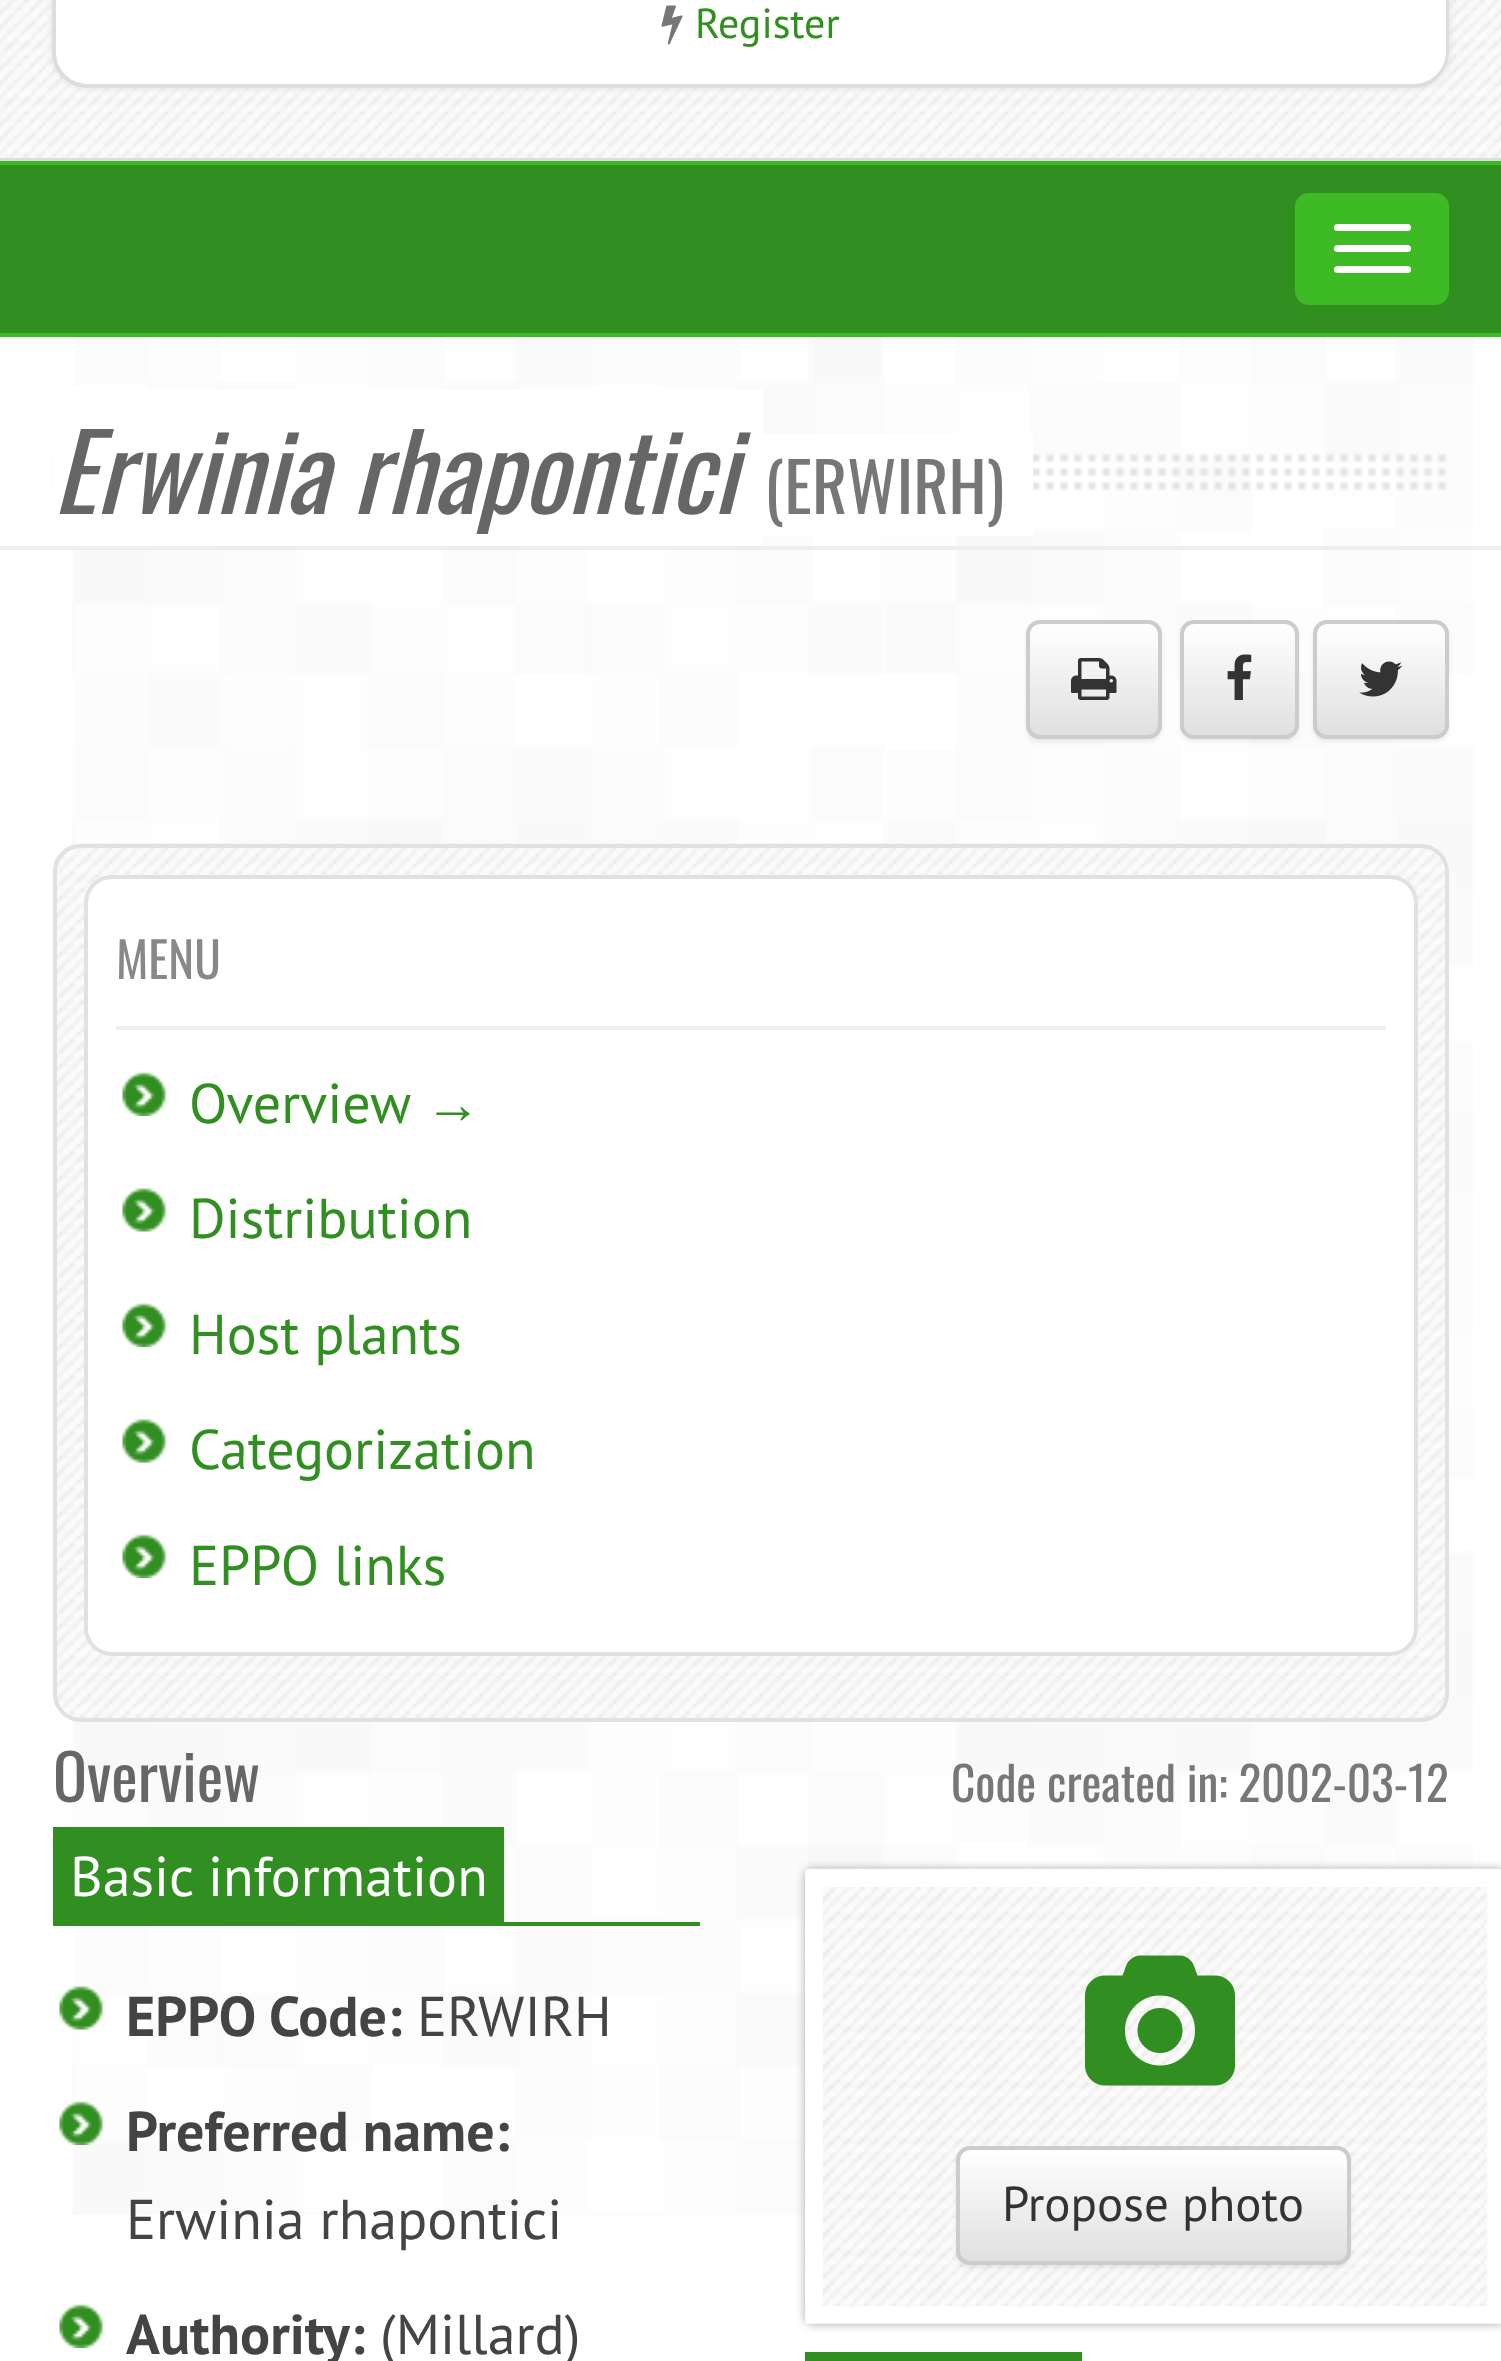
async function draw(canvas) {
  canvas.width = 1501;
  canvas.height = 2361;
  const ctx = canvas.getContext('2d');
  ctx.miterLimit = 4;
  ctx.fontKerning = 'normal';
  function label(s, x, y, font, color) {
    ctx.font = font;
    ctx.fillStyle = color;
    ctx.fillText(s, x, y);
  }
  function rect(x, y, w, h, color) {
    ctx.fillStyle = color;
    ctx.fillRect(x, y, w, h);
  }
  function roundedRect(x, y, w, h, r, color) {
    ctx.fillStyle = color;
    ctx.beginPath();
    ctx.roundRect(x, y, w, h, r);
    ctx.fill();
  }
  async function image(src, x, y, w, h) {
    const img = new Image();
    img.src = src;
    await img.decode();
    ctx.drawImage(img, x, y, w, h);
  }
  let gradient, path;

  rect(0, 0, 1501, 2361, '#fff');
  await image('assets/img1.png', 72, 337, 1401, 1878);
  await image('assets/img2.png', 0, 0, 1501, 158);
  rect(0, 158, 1501, 3, '#ddd');
  ctx.filter = 'blur(3.5px)';
  ctx.beginPath();
  ctx.roundRect(53, -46, 1396, 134, 35);
  ctx.fill();
  ctx.filter = 'none';
  roundedRect(53, -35, 1396, 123, 35, '#fff');
  ctx.fillStyle = '#ddd';
  path = new Path2D('M88-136H1414C1433-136 1449-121 1449-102V52C1449 72 1433 88 1414 88H88C68 88 52 72 52 52V-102C52-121 68-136 88-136ZM88-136H1414C1431-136 1446-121 1446-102V52C1446 70 1431 84 1414 84H88C70 84 56 70 56 52V-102C56-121 70-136 88-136Z');
  ctx.fill(path, 'evenodd');
  await image('assets/img3.png', 661, 5, 22, 40);
  label('Register', 695, 38, '42px PT Sans', '#318e20');
  rect(0, 165, 1501, 168, '#318e20');
  rect(0, 161, 1501, 4, '#3eba25');
  rect(0, 333, 1501, 4, '#3eba25');
  roundedRect(1295, 193, 154, 112, 14, '#3eba25');
  roundedRect(1334, 224, 77, 7, 3.5, '#fff');
  roundedRect(1334, 245, 77, 7, 3.5, '#fff');
  roundedRect(1334, 266, 77, 7, 3.5, '#fff');
  rect(0, 546, 1501, 4, '#eee');
  await image('assets/img4.png', 52, 453, 1395, 38);
  rect(53, 389, 710, 157, '#fff');
  label('Erwinia rhapontici', 53, 514, 'italic 105px Oswald', '#666');
  rect(763, 434, 270, 102, '#fff');
  label('(ERWIRH)', 764, 514, '68px Oswald', '#777');
  ctx.fillStyle = '#00000012';
  ctx.filter = 'blur(2px)';
  ctx.beginPath();
  ctx.roundRect(1026, 623, 136, 119, 14);
  ctx.fill();
  ctx.filter = 'none';
  ctx.save();
  ctx.beginPath();
  ctx.roundRect(1026, 620, 136, 119, 14);
  ctx.clip();
  gradient = ctx.createLinearGradient(1094, 623, 1094, 735);
  gradient.addColorStop(0, '#fff');
  gradient.addColorStop(1, '#e0e0e0');
  ctx.fillStyle = gradient;
  ctx.fillRect(1026, 623, 136, 112);
  ctx.restore();
  ctx.fillStyle = '#ffffff26';
  path = new Path2D('M1040 626H1150C1161 629 1158 645 1158 652V729C1159 727 1159 726 1159 724V634C1159 628 1154 623 1148 623H1040C1034 623 1029 628 1029 634V637C1029 631 1034 626 1040 626Z');
  ctx.fill(path);
  ctx.beginPath();
  ctx.roundRect(1028, 622, 132, 115, 12);
  ctx.strokeStyle = '#ccc';
  ctx.lineWidth = 4;
  ctx.stroke();
  await image('assets/img5.png', 1071, 658, 46, 42);
  ctx.fillStyle = '#00000012';
  ctx.filter = 'blur(2px)';
  ctx.beginPath();
  ctx.roundRect(1180, 623, 119, 119, 14);
  ctx.fill();
  ctx.filter = 'none';
  ctx.save();
  ctx.beginPath();
  ctx.roundRect(1180, 620, 119, 119, 14);
  ctx.clip();
  gradient = ctx.createLinearGradient(1239, 623, 1239, 735);
  gradient.addColorStop(0, '#fff');
  gradient.addColorStop(1, '#e0e0e0');
  ctx.fillStyle = gradient;
  ctx.fillRect(1180, 623, 119, 112);
  ctx.restore();
  ctx.beginPath();
  ctx.roundRect(1182, 622, 115, 115, 12);
  ctx.stroke();
  await image('assets/img6.png', 1227, 654, 25, 46);
  ctx.filter = 'blur(2px)';
  ctx.beginPath();
  ctx.roundRect(1313, 623, 136, 119, 14);
  ctx.fill();
  ctx.filter = 'none';
  ctx.save();
  ctx.beginPath();
  ctx.roundRect(1313, 620, 136, 119, 14);
  ctx.clip();
  gradient = ctx.createLinearGradient(1381, 623, 1381, 735);
  gradient.addColorStop(0, '#fff');
  gradient.addColorStop(1, '#e0e0e0');
  ctx.fillStyle = gradient;
  ctx.fillRect(1313, 623, 136, 112);
  ctx.restore();
  ctx.beginPath();
  ctx.roundRect(1315, 622, 132, 115, 12);
  ctx.stroke();
  await image('assets/img7.png', 1359, 661, 44, 36);
  await image('assets/img8.png', 52, 843, 1397, 878);
  ctx.beginPath();
  ctx.roundRect(55, 846, 1392, 874, 26);
  ctx.strokeStyle = '#e1e1e1';
  ctx.stroke();
  ctx.fillStyle = '#fff';
  ctx.beginPath();
  ctx.roundRect(86, 877, 1330, 777, 26);
  ctx.fill();
  ctx.stroke();
  rect(116, 1026, 1270, 4, '#eee');
  label('MENU', 116, 979, '49px Oswald', '#888');
  await image('assets/img9.png', 122, 1072, 45, 44);
  label('Overview', 189, 1123, '56px PT Sans', '#318e20');
  label('→', 425, 1123, '56px Liberation Sans', '#318e20');
  await image('assets/img10.png', 122, 1188, 45, 44);
  label('Distribution', 189, 1238, '56px PT Sans', '#318e20');
  await image('assets/img9.png', 122, 1303, 45, 44);
  label('Host plants', 189, 1354, '56px PT Sans', '#318e20');
  await image('assets/img10.png', 122, 1419, 45, 44);
  label('Categorization', 189, 1469, '56px PT Sans', '#318e20');
  await image('assets/img9.png', 122, 1534, 45, 44);
  label('EPPO links', 189, 1585, '56px PT Sans', '#318e20');
  label('Overview', 53, 1802, '63px Oswald', '#666');
  label('Code created in: 2002-03-12', 951, 1802, '47.25px Oswald', '#777');
  rect(53, 1922, 647, 4, '#318e20');
  rect(53, 1827, 451, 95, '#318e20');
  label('Basic information', 70, 1896, '56px PT Sans', '#fff');
  await image('assets/img11.png', 59, 1986, 45, 44);
  label('EPPO Code:', 126, 2036, 'bold 56px PT Sans', '#444');
  label('ERWIRH', 417, 2036, '56px PT Sans', '#444');
  await image('assets/img12.png', 59, 2101, 45, 44);
  label('Preferred name:', 126, 2151, 'bold 56px PT Sans', '#444');
  label('Erwinia rhapontici', 126, 2239, '56px PT Sans', '#444');
  await image('assets/img13.png', 59, 2304, 45, 44);
  label('Authority:', 126, 2354, 'bold 56px PT Sans', '#444');
  label('(Millard)', 380, 2354, '56px PT Sans', '#444');
  ctx.fillStyle = '#aaa';
  ctx.filter = 'blur(5px)';
  ctx.beginPath();
  ctx.roundRect(805, 1869, 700, 455, 7);
  ctx.fill();
  ctx.filter = 'none';
  await image('assets/img14.png', 805, 1868, 696, 452);
  path = new Path2D('M814 1878H1496V2315H814Z');
  ctx.strokeStyle = '#fff';
  ctx.lineWidth = 17.5;
  ctx.stroke(path);
  await image('assets/img15.png', 1085, 1955, 150, 131);
  ctx.fillStyle = '#00000012';
  ctx.filter = 'blur(2px)';
  ctx.beginPath();
  ctx.roundRect(956, 2149, 395, 119, 14);
  ctx.fill();
  ctx.filter = 'none';
  ctx.save();
  ctx.beginPath();
  ctx.roundRect(956, 2146, 395, 119, 14);
  ctx.clip();
  gradient = ctx.createLinearGradient(1153, 2149, 1153, 2261);
  gradient.addColorStop(0, '#fff');
  gradient.addColorStop(1, '#e0e0e0');
  ctx.fillStyle = gradient;
  ctx.fillRect(956, 2149, 395, 112);
  ctx.restore();
  ctx.beginPath();
  ctx.roundRect(958, 2148, 391, 115, 12);
  ctx.strokeStyle = '#ccc';
  ctx.lineWidth = 4;
  ctx.stroke();
  label('Propose photo', 1002, 2221, '49px PT Sans', '#333');
  rect(805, 2352, 277, 9, '#318e20');
}

draw(document.querySelector('canvas'));
